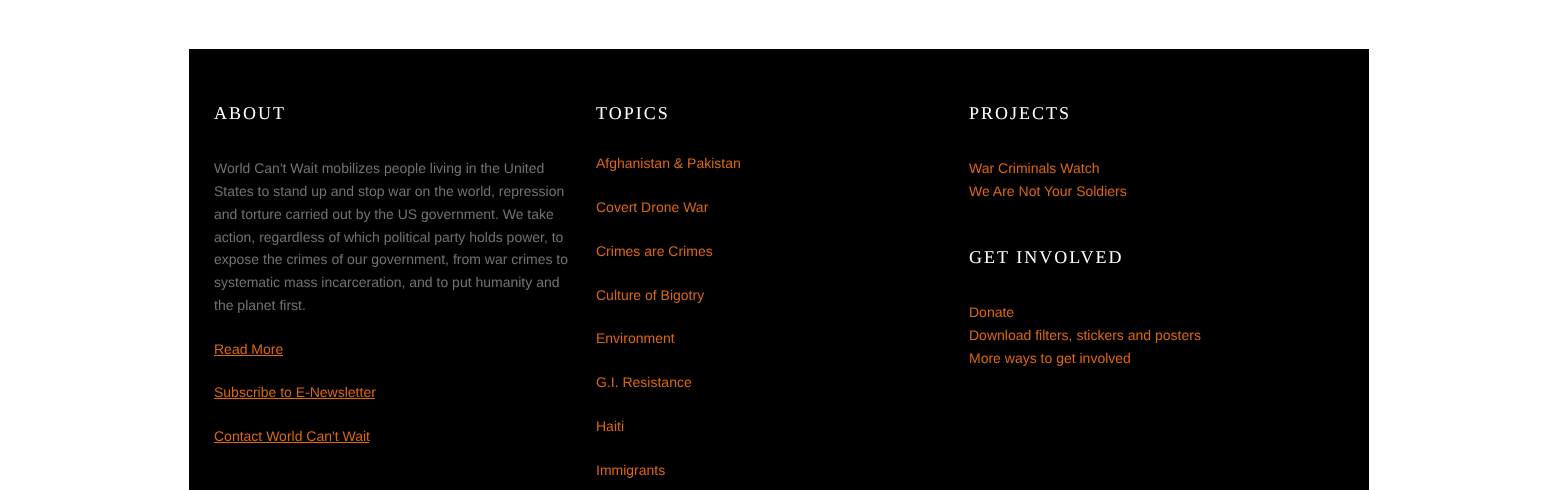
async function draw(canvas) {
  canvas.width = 1557;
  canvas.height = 490;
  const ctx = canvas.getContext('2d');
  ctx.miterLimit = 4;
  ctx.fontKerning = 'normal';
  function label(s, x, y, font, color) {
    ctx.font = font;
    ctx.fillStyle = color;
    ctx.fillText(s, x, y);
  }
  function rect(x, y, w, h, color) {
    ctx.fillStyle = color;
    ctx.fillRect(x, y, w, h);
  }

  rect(0, 0, 1557, 490, '#fff');
  rect(189, 49, 1180, 441, '#000');
  ctx.letterSpacing = '2px';
  label('ABOUT', 214, 119, '18px Liberation Serif', '#fff');
  ctx.letterSpacing = '0px';
  label('World Can\'t Wait mobilizes people living in the United', 214, 173, '14px Liberation Sans', '#727272');
  label('States to stand up and stop war on the world, repression', 214, 196, '14px Liberation Sans', '#727272');
  label('and torture carried out by the US government. We take', 214, 219, '14px Liberation Sans', '#727272');
  label('action, regardless of which political party holds power, to', 214, 242, '14px Liberation Sans', '#727272');
  label('expose the crimes of our government, from war crimes to', 214, 264, '14px Liberation Sans', '#727272');
  label('systematic mass incarceration, and to put humanity and', 214, 287, '14px Liberation Sans', '#727272');
  label('the planet first.', 214, 310, '14px Liberation Sans', '#727272');
  label('Read More', 214, 354, '14px Liberation Sans', '#dd6710');
  rect(214, 355, 69, 1, '#dd6710');
  label('Subscribe to E-Newsletter', 214, 397, '14px Liberation Sans', '#dd6710');
  rect(214, 398, 161, 1, '#dd6710');
  label('Contact World Can\'t Wait', 214, 441, '14px Liberation Sans', '#dd6710');
  rect(214, 442, 155, 1, '#dd6710');
  ctx.letterSpacing = '2px';
  label('TOPICS', 596, 119, '18px Liberation Serif', '#fff');
  ctx.letterSpacing = '0px';
  label('Afghanistan & Pakistan', 596, 168, '14px Liberation Sans', '#dd6710');
  label('Covert Drone War', 596, 212, '14px Liberation Sans', '#dd6710');
  label('Crimes are Crimes', 596, 256, '14px Liberation Sans', '#dd6710');
  label('Culture of Bigotry', 596, 300, '14px Liberation Sans', '#dd6710');
  label('Environment', 596, 343, '14px Liberation Sans', '#dd6710');
  label('G.I. Resistance', 596, 387, '14px Liberation Sans', '#dd6710');
  label('Haiti', 596, 431, '14px Liberation Sans', '#dd6710');
  label('Immigrants', 596, 475, '14px Liberation Sans', '#dd6710');
  ctx.letterSpacing = '2px';
  label('PROJECTS', 969, 119, '18px Liberation Serif', '#fff');
  ctx.letterSpacing = '0px';
  label('War Criminals Watch', 969, 173, '14px Liberation Sans', '#dd6710');
  label('We Are Not Your Soldiers', 969, 196, '14px Liberation Sans', '#dd6710');
  ctx.letterSpacing = '2px';
  label('GET INVOLVED', 969, 263, '18px Liberation Serif', '#fff');
  ctx.letterSpacing = '0px';
  label('Donate', 969, 317, '14px Liberation Sans', '#dd6710');
  label('Download filters, stickers and posters', 969, 340, '14px Liberation Sans', '#dd6710');
  label('More ways to get involved', 969, 363, '14px Liberation Sans', '#dd6710');
}

draw(document.querySelector('canvas'));
